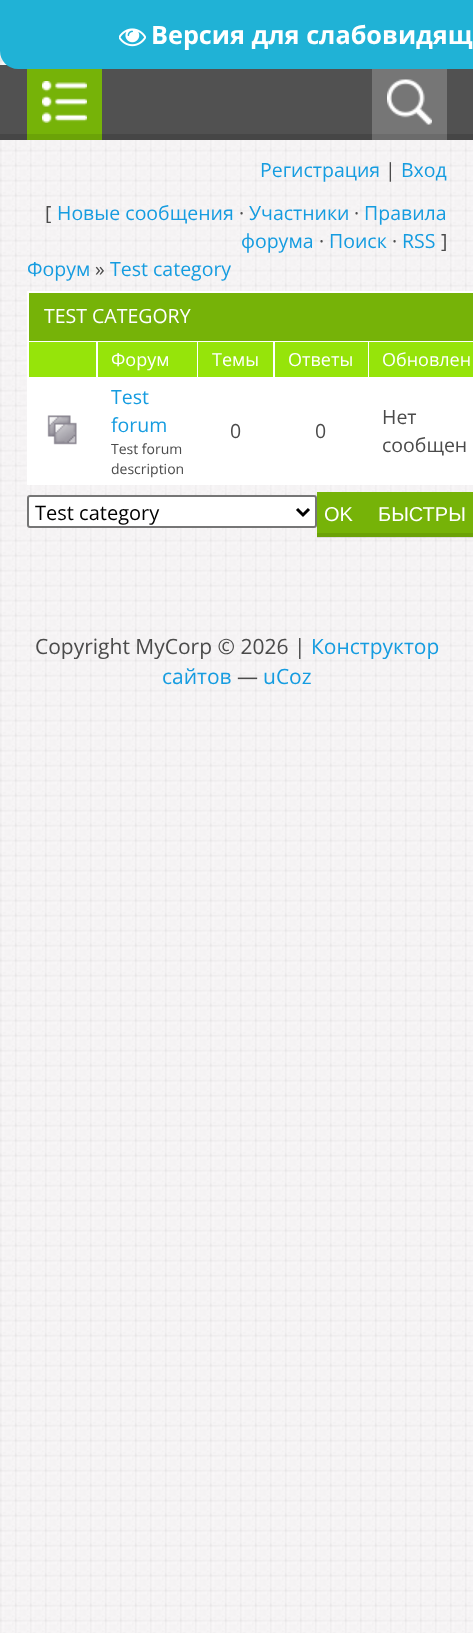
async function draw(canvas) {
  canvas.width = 473;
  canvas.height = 1633;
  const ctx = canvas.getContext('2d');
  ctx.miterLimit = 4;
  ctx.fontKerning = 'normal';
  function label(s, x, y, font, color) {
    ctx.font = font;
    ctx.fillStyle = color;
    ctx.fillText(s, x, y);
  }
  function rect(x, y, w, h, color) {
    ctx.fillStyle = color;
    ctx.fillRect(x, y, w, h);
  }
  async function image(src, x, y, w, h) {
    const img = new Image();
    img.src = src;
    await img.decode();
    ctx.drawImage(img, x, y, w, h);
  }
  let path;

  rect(0, 0, 473, 1633, '#fff');
  await image('assets/img1.png', 0, 51, 473, 1582);
  rect(0, 65, 473, 69, '#515151');
  ctx.fillStyle = '#20b2d6';
  path = new Path2D('M0 0H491V51C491 61 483 69 473 69H18C8 69 0 61 0 51Z');
  ctx.fill(path);
  await image('assets/img2.png', 119, 28, 27, 19);
  label('Версия для слабовидящ', 151, 44, 'bold 25.25px Open Sans', '#fff');
  rect(0, 134, 473, 6, '#464646');
  rect(27, 69, 75, 65, '#76b308');
  await image('assets/img3.png', 42, 81, 45, 42);
  rect(27, 134, 75, 6, '#6ba307');
  rect(372, 69, 75, 65, '#767676');
  await image('assets/img4.png', 387, 79, 45, 46);
  rect(372, 134, 75, 6, '#6b6b6b');
  label('Регистрация', 260, 177, '19.5px Open Sans', '#159ce0');
  label('|', 385, 177, '19.5px Open Sans', '#4b4b4b');
  label('Вход', 401, 177, '19.5px Open Sans', '#159ce0');
  label('[', 45, 220, '19.5px Open Sans', '#4b4b4b');
  label('Новые сообщения', 57, 220, '19.5px Open Sans', '#159ce0');
  label('·', 239, 220, '19.5px Open Sans', '#4b4b4b');
  label('Участники', 249, 220, '19.5px Open Sans', '#159ce0');
  label('·', 354, 220, '19.5px Open Sans', '#4b4b4b');
  label('Правила', 364, 220, '19.5px Open Sans', '#159ce0');
  label('форума', 241, 248, '19.5px Open Sans', '#159ce0');
  label('·', 319, 248, '19.5px Open Sans', '#4b4b4b');
  label('Поиск', 329, 248, '19.5px Open Sans', '#159ce0');
  label('·', 392, 248, '19.5px Open Sans', '#4b4b4b');
  label('RSS', 402, 248, '19.5px Open Sans', '#159ce0');
  label(']', 441, 248, '19.5px Open Sans', '#4b4b4b');
  label('Форум', 27, 276, '19.5px Open Sans', '#159ce0');
  label('»', 95, 276, '19.5px Open Sans', '#4b4b4b');
  label('Test category', 110, 276, '19.5px Open Sans', '#159ce0');
  rect(27, 291, 446, 194, '#fff');
  rect(29, 293, 444, 48, '#76b308');
  label('TEST CATEGORY', 44, 323, '19.5px Open Sans', '#fff');
  rect(29, 342, 67, 35, '#96e40a');
  rect(98, 342, 99, 35, '#96e40a');
  label('Форум', 111, 366, '18px Open Sans', '#fff');
  rect(198, 342, 75, 35, '#96e40a');
  label('Темы', 212, 366, '18px Open Sans', '#fff');
  rect(275, 342, 93, 35, '#96e40a');
  label('Ответы', 288, 366, '18px Open Sans', '#fff');
  rect(369, 342, 104, 35, '#96e40a');
  label('Обновлен', 382, 366, '18px Open Sans', '#fff');
  await image('assets/img5.png', 47, 415, 30, 30);
  label('Test', 111, 404, '19.5px Open Sans', '#159ce0');
  label('forum', 111, 432, '19.5px Open Sans', '#159ce0');
  label('Test forum', 111, 454, '14px Open Sans', '#4b4b4b');
  label('description', 111, 474, '14px Open Sans', '#4b4b4b');
  label('0', 230, 438, '19.5px Open Sans', '#4b4b4b');
  label('0', 315, 438, '19.5px Open Sans', '#4b4b4b');
  label('Нет', 382, 424, '19.5px Open Sans', '#4b4b4b');
  label('сообщен', 382, 452, '19.5px Open Sans', '#4b4b4b');
  ctx.fillStyle = '#fff';
  ctx.beginPath();
  ctx.roundRect(28, 496, 288, 31, 2);
  ctx.fill();
  ctx.strokeStyle = '#767676';
  ctx.lineWidth = 2;
  ctx.stroke();
  path = new Path2D('M297 509L303 515L309 509');
  ctx.strokeStyle = '#000';
  ctx.lineWidth = 3;
  ctx.stroke(path);
  ctx.save();
  ctx.beginPath();
  ctx.rect(35, 497, 256, 30);
  ctx.clip();
  label('Test category', 35, 520, '20px Open Sans', '#000');
  ctx.restore();
  rect(317, 492, 156, 45, '#76b308');
  rect(317, 533, 43, 5, '#00000017');
  label('OK', 324, 521, '20px Liberation Sans', '#fff');
  rect(360, 533, 113, 5, '#00000017');
  label('БЫСТРЫ', 378, 521, '20px Liberation Sans', '#fff');
  label('Copyright MyCorp © 2026 |', 35, 654, '21px Open Sans', '#4b4b4b');
  label('Конструктор', 311, 654, '21px Open Sans', '#159ce0');
  label('сайтов', 162, 684, '21px Open Sans', '#159ce0');
  label('—', 237, 684, '21px Open Sans', '#4b4b4b');
  label('uCoz', 263, 684, '21px Open Sans', '#159ce0');
}

draw(document.querySelector('canvas'));
